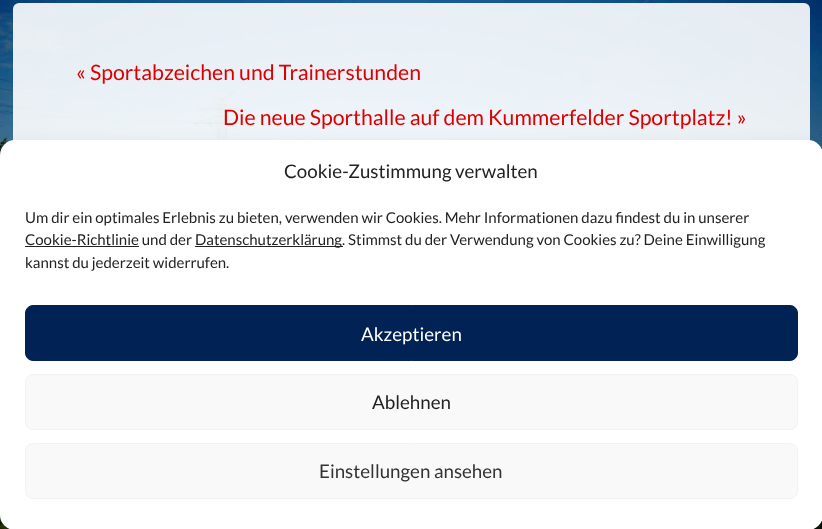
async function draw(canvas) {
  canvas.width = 822;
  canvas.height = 529;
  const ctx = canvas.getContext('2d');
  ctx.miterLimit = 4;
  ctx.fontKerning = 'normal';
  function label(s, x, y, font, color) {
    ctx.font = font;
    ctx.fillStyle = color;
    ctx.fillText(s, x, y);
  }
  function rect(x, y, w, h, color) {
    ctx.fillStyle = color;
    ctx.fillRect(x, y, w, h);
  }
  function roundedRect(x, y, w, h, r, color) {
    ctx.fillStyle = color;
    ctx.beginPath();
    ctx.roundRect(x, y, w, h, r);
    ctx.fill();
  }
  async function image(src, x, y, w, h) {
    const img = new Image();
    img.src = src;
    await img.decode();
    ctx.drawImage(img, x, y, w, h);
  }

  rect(0, 0, 822, 529, '#fff');
  await image('assets/img1.png', 0, 0, 822, 529);
  roundedRect(13, 3, 797, 183, 6, '#ffffffe6');
  label('« Sportabzeichen und Trainerstunden', 76, 80, '21.25px Lato', '#d00');
  label('Die neue Sporthalle auf dem Kummerfelder Sportplatz! »', 223, 125, '21.25px Lato', '#d00');
  ctx.fillStyle = '#0000003b';
  ctx.filter = 'blur(4px)';
  ctx.beginPath();
  ctx.roundRect(0, 148, 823, 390, 15);
  ctx.fill();
  ctx.filter = 'none';
  ctx.fillStyle = '#00000030';
  ctx.filter = 'blur(12.5px)';
  ctx.beginPath();
  ctx.roundRect(0, 153, 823, 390, 15);
  ctx.fill();
  ctx.filter = 'none';
  roundedRect(0, 140, 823, 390, 15, '#fff');
  label('Cookie-Zustimmung verwalten', 284, 178, '18.75px Lato', '#222');
  label('Um dir ein optimales Erlebnis zu bieten, verwenden wir Cookies. Mehr Informationen dazu findest du in unserer', 25, 223, '15px Lato', '#222');
  label('Cookie-Richtlinie und der', 25, 245, '15px Lato', '#222');
  rect(25, 246, 114, 1, '#222');
  rect(195, 246, 148, 1, '#222');
  label('Datenschutzerklärung. Stimmst du der Verwendung von Cookies zu? Deine Einwilligung', 195, 245, '15px Lato', '#222');
  label('kannst du jederzeit widerrufen.', 25, 268, '15px Lato', '#222');
  ctx.fillStyle = '#025';
  ctx.beginPath();
  ctx.roundRect(25.5, 305.5, 772, 55, 7.5);
  ctx.fill();
  ctx.strokeStyle = '#025';
  ctx.stroke();
  label('Akzeptieren', 361, 341, '18.75px Lato', '#fff');
  ctx.fillStyle = '#f9f9f9';
  ctx.beginPath();
  ctx.roundRect(25.5, 374.5, 772, 55, 7.5);
  ctx.fill();
  ctx.strokeStyle = '#f2f2f2';
  ctx.stroke();
  label('Ablehnen', 372, 409, '18.75px Lato', '#222');
  ctx.fillStyle = '#f9f9f9';
  ctx.beginPath();
  ctx.roundRect(25.5, 443.5, 772, 55, 7.5);
  ctx.fill();
  ctx.stroke();
  label('Einstellungen ansehen', 319, 478, '18.75px Lato', '#333');
}

draw(document.querySelector('canvas'));
